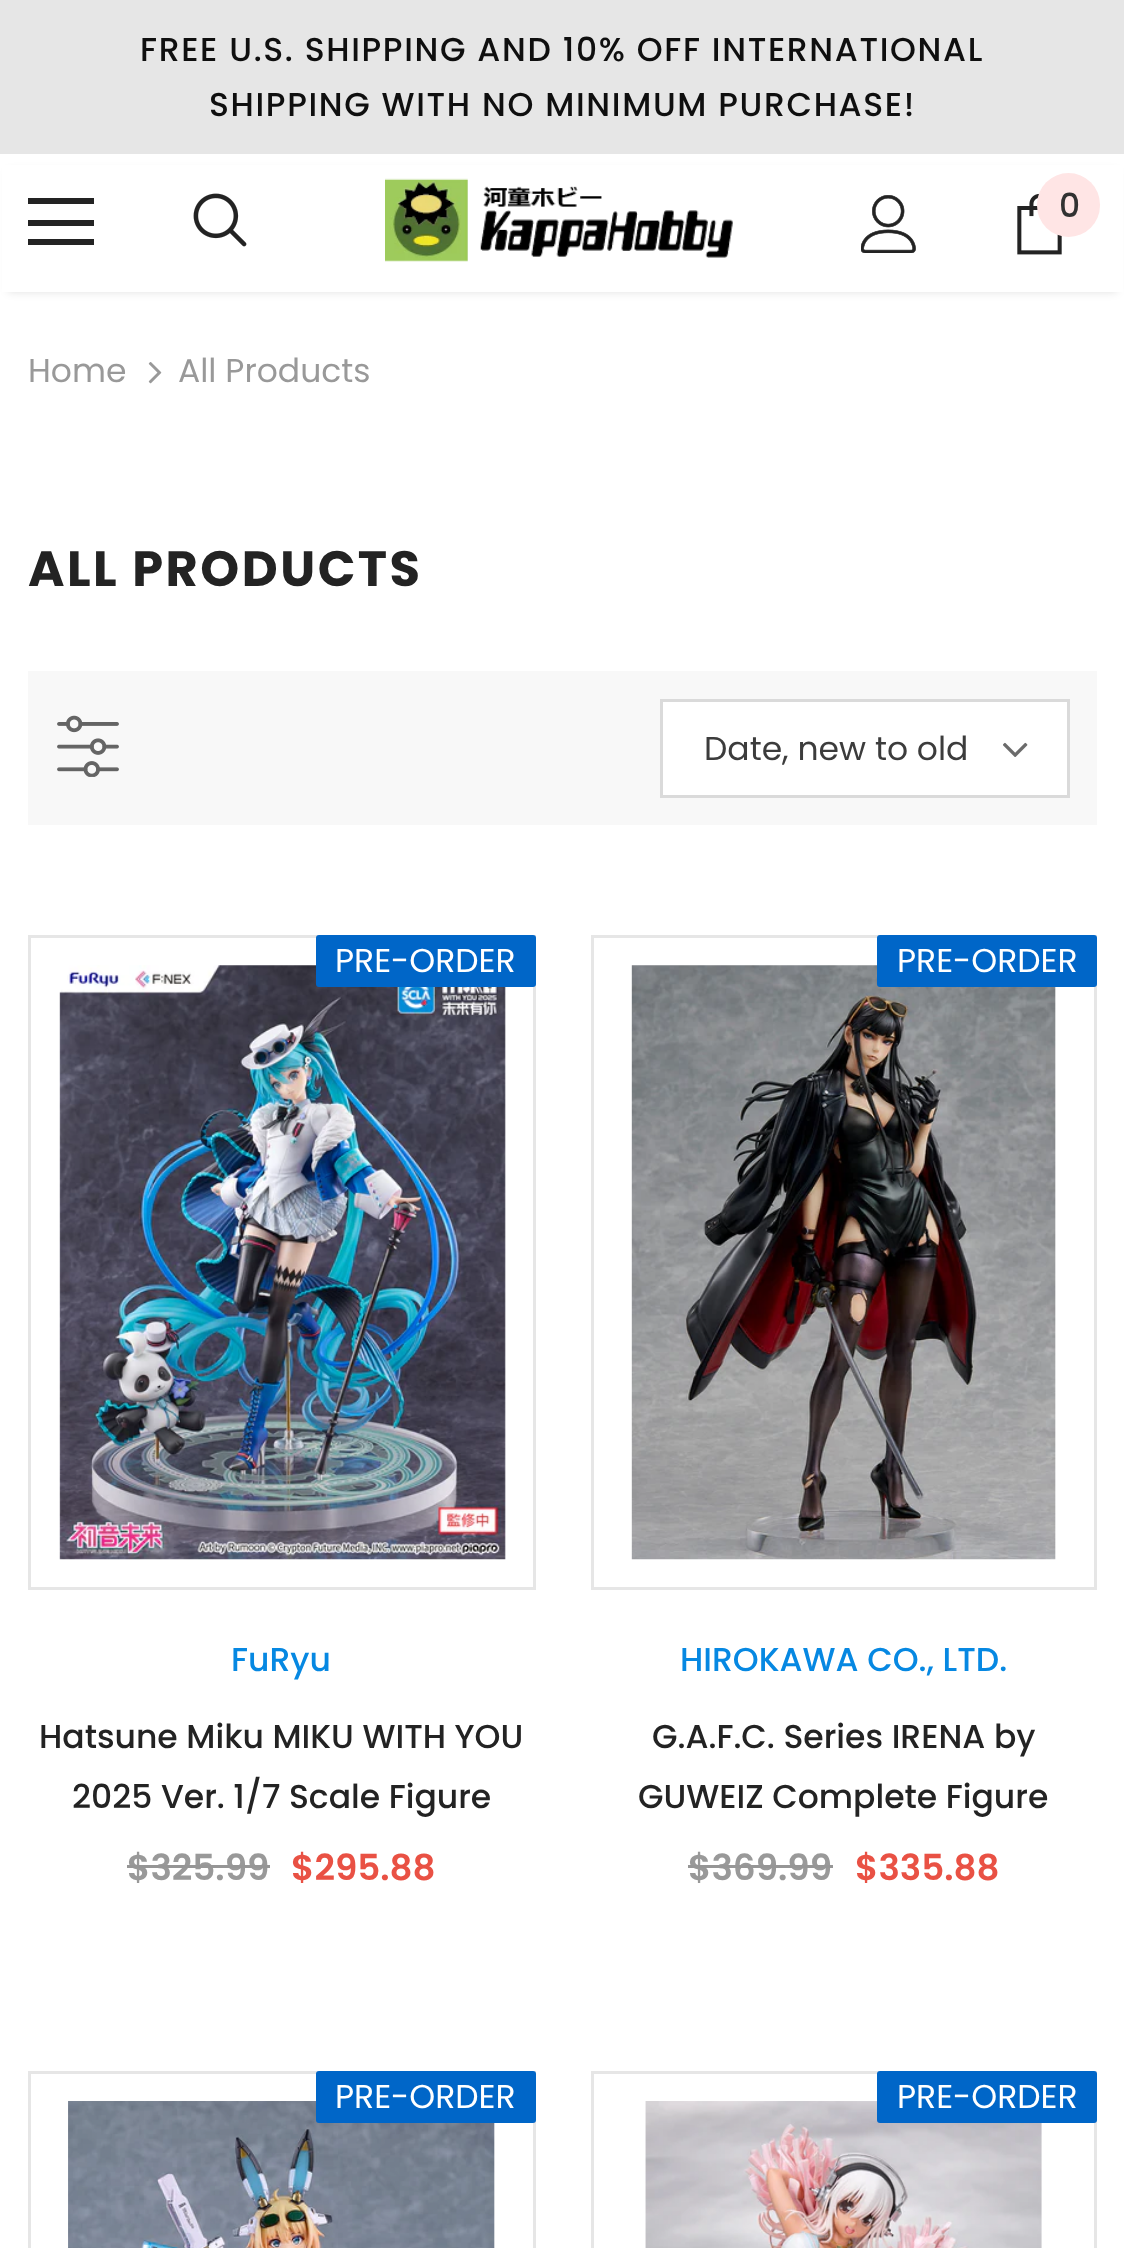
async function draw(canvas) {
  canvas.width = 1124;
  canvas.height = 2248;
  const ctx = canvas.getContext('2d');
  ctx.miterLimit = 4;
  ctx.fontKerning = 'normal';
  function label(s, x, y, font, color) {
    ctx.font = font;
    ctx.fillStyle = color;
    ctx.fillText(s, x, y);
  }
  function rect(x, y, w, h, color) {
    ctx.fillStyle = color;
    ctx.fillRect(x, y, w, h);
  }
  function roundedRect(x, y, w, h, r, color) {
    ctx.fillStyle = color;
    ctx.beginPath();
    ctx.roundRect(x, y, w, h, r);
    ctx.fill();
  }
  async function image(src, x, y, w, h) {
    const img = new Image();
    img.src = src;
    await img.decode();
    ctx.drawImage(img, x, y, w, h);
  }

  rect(0, 0, 1124, 2248, '#fff');
  rect(0, 0, 1124, 154, '#e6e6e6');
  ctx.letterSpacing = '1.65px';
  label('FREE U.S. SHIPPING AND 10% OFF INTERNATIONAL', 140, 61, '500 33px Poppins', '#0f0f0f');
  label('SHIPPING WITH NO MINIMUM PURCHASE!', 209, 116, '500 33px Poppins', '#0f0f0f');
  ctx.fillStyle = '#0000001f';
  ctx.filter = 'blur(4px)';
  ctx.beginPath();
  ctx.rect(8, 171, 1109, 121);
  ctx.fill();
  ctx.filter = 'none';
  rect(2, 165, 1121, 127, '#fff');
  rect(28, 198, 66, 6, '#232323');
  rect(28, 220, 66, 6, '#232323');
  rect(28, 239, 66, 6, '#232323');
  await image('assets/img1.png', 193, 193, 54, 54);
  await image('assets/img2.png', 385, 178, 348, 84);
  await image('assets/img3.png', 861, 195, 55, 58);
  await image('assets/img4.png', 1017, 193, 45, 62);
  roundedRect(1037, 173, 63, 64, 31.5, '#ffe5e5');
  ctx.letterSpacing = '0px';
  label('0', 1059, 217, '500 33px Poppins', '#323232');
  label('Home', 28, 382, '33px Poppins', '#999');
  await image('assets/img5.png', 148, 362, 14, 22);
  label('All Products', 178, 382, '33px Poppins', '#999');
  ctx.letterSpacing = '2.5px';
  label('ALL PRODUCTS', 28, 586, 'bold 49.5px Poppins', '#232323');
  rect(28, 671, 1069, 154, '#f8f8f8');
  await image('assets/img6.png', 57, 715, 62, 62);
  ctx.fillStyle = '#fff';
  ctx.beginPath();
  ctx.rect(661.5, 700.5, 407, 96);
  ctx.fill();
  ctx.strokeStyle = '#dadada';
  ctx.lineWidth = 3;
  ctx.stroke();
  ctx.letterSpacing = '0px';
  label('Date, new to old', 704, 760, '33px Poppins', '#3c3c3c');
  await image('assets/img7.png', 1003, 742, 25, 15);
  ctx.strokeStyle = '#e6e6e6';
  ctx.strokeRect(29.5, 936.5, 505, 652);
  await image('assets/img8.png', 59, 965, 447, 595);
  roundedRect(316, 935, 220, 52, 3, '#0066c8');
  label('PRE-ORDER', 335, 972, '33px Poppins', '#fff');
  label('FuRyu', 231, 1671, '500 33px Poppins', '#0688e2');
  label('Hatsune Miku MIKU WITH YOU', 39, 1748, '500 33px Poppins', '#232323');
  label('2025 Ver. 1/7 Scale Figure', 72, 1808, '500 33px Poppins', '#232323');
  label('$325.99', 127, 1880, '600 35.75px Poppins', '#999');
  rect(127, 1865, 143, 3, '#969696');
  label('$295.88', 291, 1880, '600 35.75px Poppins', '#e95144');
  ctx.strokeRect(592.5, 936.5, 503, 652);
  await image('assets/img9.png', 631, 965, 425, 595);
  roundedRect(877, 935, 220, 52, 3, '#0066c8');
  label('PRE-ORDER', 897, 972, '33px Poppins', '#fff');
  label('HIROKAWA CO., LTD.', 680, 1671, '500 33px Poppins', '#0688e2');
  label('G.A.F.C. Series IRENA by', 652, 1748, '500 33px Poppins', '#232323');
  label('GUWEIZ Complete Figure', 638, 1808, '500 33px Poppins', '#232323');
  label('$369.99', 688, 1880, '600 35.75px Poppins', '#999');
  rect(688, 1865, 145, 3, '#969696');
  label('$335.88', 855, 1880, '600 35.75px Poppins', '#e95144');
  ctx.strokeRect(29.5, 2072.5, 505, 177);
  await image('assets/img10.png', 68, 2101, 427, 147);
  roundedRect(316, 2071, 220, 52, 3, '#0066c8');
  label('PRE-ORDER', 335, 2108, '33px Poppins', '#fff');
  ctx.strokeRect(592.5, 2072.5, 503, 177);
  await image('assets/img11.png', 645, 2101, 397, 147);
  roundedRect(877, 2071, 220, 52, 3, '#0066c8');
  label('PRE-ORDER', 897, 2108, '33px Poppins', '#fff');
}

draw(document.querySelector('canvas'));
